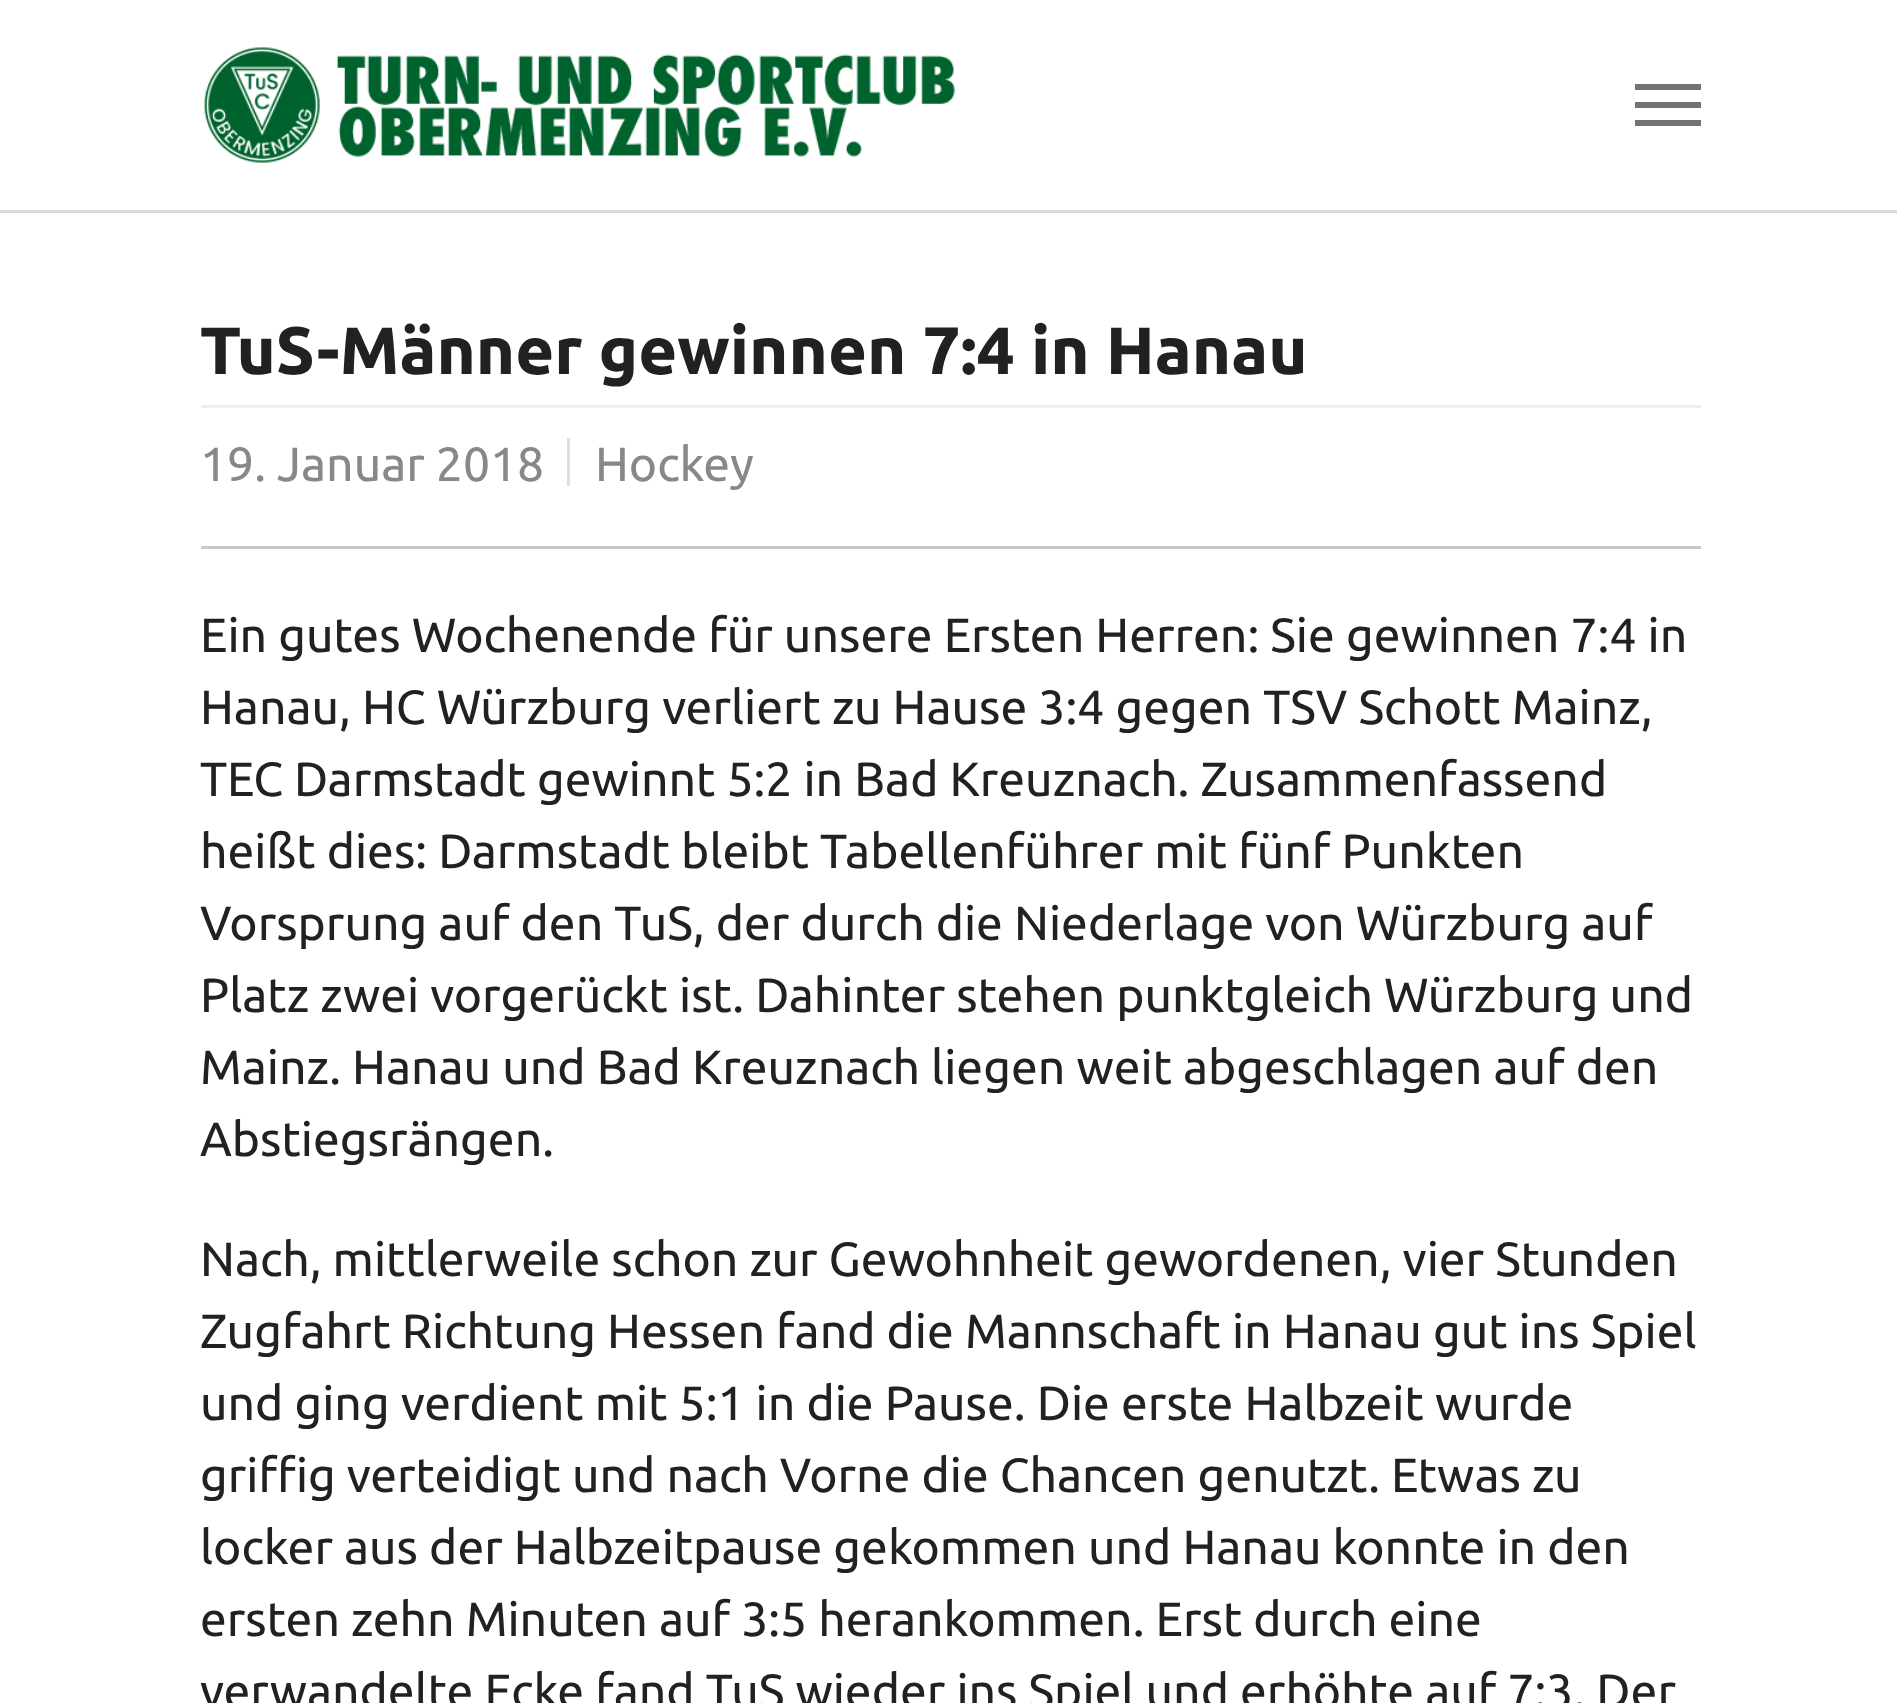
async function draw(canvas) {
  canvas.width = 1897;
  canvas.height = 1703;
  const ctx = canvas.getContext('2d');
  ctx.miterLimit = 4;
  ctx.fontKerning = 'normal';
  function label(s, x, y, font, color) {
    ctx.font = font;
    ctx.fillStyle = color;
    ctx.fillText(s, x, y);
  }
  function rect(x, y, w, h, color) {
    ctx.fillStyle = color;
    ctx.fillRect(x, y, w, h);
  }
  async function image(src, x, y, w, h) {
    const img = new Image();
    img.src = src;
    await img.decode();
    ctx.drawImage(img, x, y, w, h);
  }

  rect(0, 0, 1897, 1703, '#fff');
  rect(0, 210, 1897, 3, '#d9d9d9');
  await image('assets/img1.png', 204, 47, 751, 116);
  rect(1635, 102, 66, 6, '#737373');
  rect(1635, 84, 66, 6, '#737373');
  rect(1635, 120, 66, 6, '#737373');
  label('TuS-Männer gewinnen 7:4 in Hanau', 200, 374, 'bold 66.9px Ubuntu', '#212121');
  rect(201, 405, 1500, 3, '#eee');
  rect(567, 438, 3, 48, '#ddd');
  label('19. Januar 2018', 200, 481, '48px Ubuntu', '#888');
  label('Hockey', 595, 481, '48px Ubuntu', '#888');
  rect(201, 546, 1500, 3, '#c8c8c8');
  label('Ein gutes Wochenende für unsere Ersten Herren: Sie gewinnen 7:4 in', 200, 652, '48px Ubuntu', '#212121');
  label('Hanau, HC Würzburg verliert zu Hause 3:4 gegen TSV Schott Mainz,', 200, 724, '48px Ubuntu', '#212121');
  label('TEC Darmstadt gewinnt 5:2 in Bad Kreuznach. Zusammenfassend', 200, 796, '48px Ubuntu', '#212121');
  label('heißt dies: Darmstadt bleibt Tabellenführer mit fünf Punkten', 200, 868, '48px Ubuntu', '#212121');
  label('Vorsprung auf den TuS, der durch die Niederlage von Würzburg auf', 200, 940, '48px Ubuntu', '#212121');
  label('Platz zwei vorgerückt ist. Dahinter stehen punktgleich Würzburg und', 200, 1012, '48px Ubuntu', '#212121');
  label('Mainz. Hanau und Bad Kreuznach liegen weit abgeschlagen auf den', 200, 1084, '48px Ubuntu', '#212121');
  label('Abstiegsrängen.', 200, 1156, '48px Ubuntu', '#212121');
  label('Nach, mittlerweile schon zur Gewohnheit gewordenen, vier Stunden', 200, 1276, '48px Ubuntu', '#212121');
  label('Zugfahrt Richtung Hessen fand die Mannschaft in Hanau gut ins Spiel', 200, 1348, '48px Ubuntu', '#212121');
  label('und ging verdient mit 5:1 in die Pause. Die erste Halbzeit wurde', 200, 1420, '48px Ubuntu', '#212121');
  label('griffig verteidigt und nach Vorne die Chancen genutzt. Etwas zu', 200, 1492, '48px Ubuntu', '#212121');
  label('locker aus der Halbzeitpause gekommen und Hanau konnte in den', 200, 1564, '48px Ubuntu', '#212121');
  label('ersten zehn Minuten auf 3:5 herankommen. Erst durch eine', 200, 1636, '48px Ubuntu', '#212121');
  label('verwandelte Ecke fand TuS wieder ins Spiel und erhöhte auf 7:3. Der', 200, 1708, '48px Ubuntu', '#212121');
}

draw(document.querySelector('canvas'));
